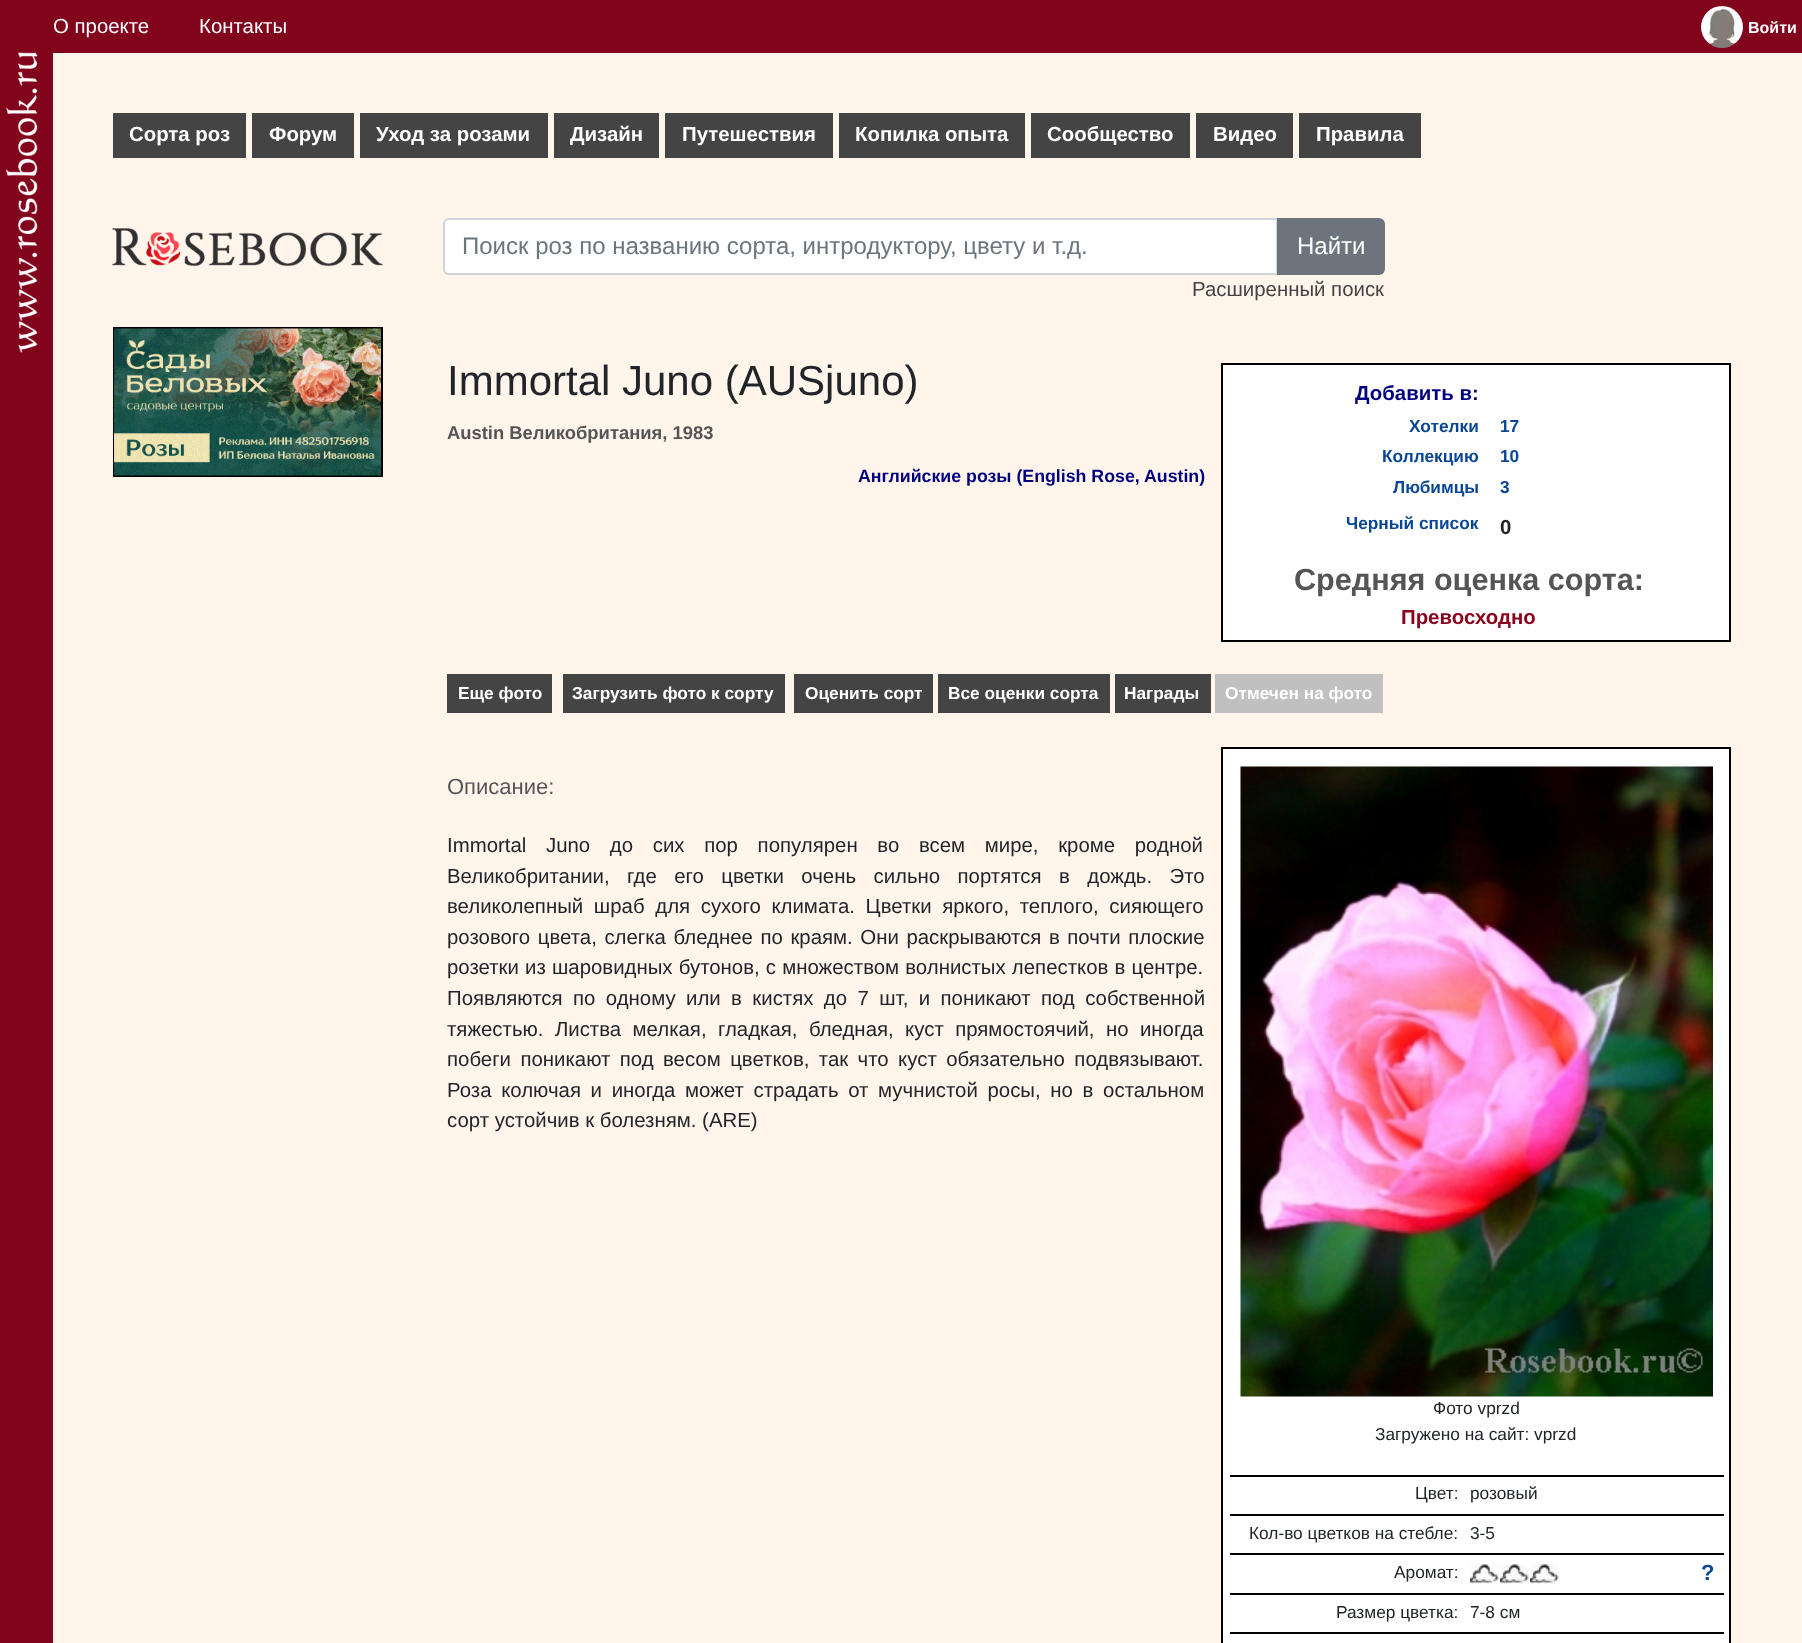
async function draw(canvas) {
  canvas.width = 1802;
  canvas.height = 1643;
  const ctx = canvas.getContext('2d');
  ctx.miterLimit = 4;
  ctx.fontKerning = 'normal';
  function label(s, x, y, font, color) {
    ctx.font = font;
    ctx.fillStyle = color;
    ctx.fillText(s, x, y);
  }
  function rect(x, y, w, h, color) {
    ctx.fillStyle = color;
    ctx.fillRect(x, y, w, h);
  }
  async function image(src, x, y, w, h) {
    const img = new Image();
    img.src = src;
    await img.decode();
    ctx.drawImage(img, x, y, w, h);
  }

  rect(0, 0, 1802, 1643, '#fff5eb');
  rect(0, 0, 53, 1643, '#81031c');
  await image('assets/img1.png', 6, 52, 32, 301);
  rect(53, 0, 1749, 53, '#81031c');
  label('О проекте', 53, 33, '20.4px Liberation Sans', '#fff');
  label('Контакты', 199, 33, '20.4px Liberation Sans', '#fff');
  await image('assets/img2.png', 1701, 6, 42, 42);
  label('Войти', 1748, 33, 'bold 16px Liberation Sans', '#fff');
  rect(113, 113, 133, 45, '#444');
  label('Сорта роз', 129, 141, 'bold 20.4px Liberation Sans', '#fff');
  rect(252, 113, 102, 45, '#444');
  label('Форум', 269, 141, 'bold 20.4px Liberation Sans', '#fff');
  rect(360, 113, 188, 45, '#444');
  label('Уход за розами', 376, 141, 'bold 20.4px Liberation Sans', '#fff');
  rect(554, 113, 105, 45, '#444');
  label('Дизайн', 570, 141, 'bold 20.4px Liberation Sans', '#fff');
  rect(665, 113, 168, 45, '#444');
  label('Путешествия', 682, 141, 'bold 20.4px Liberation Sans', '#fff');
  rect(839, 113, 186, 45, '#444');
  label('Копилка опыта', 855, 141, 'bold 20.4px Liberation Sans', '#fff');
  rect(1031, 113, 159, 45, '#444');
  label('Сообщество', 1047, 141, 'bold 20.4px Liberation Sans', '#fff');
  rect(1196, 113, 97, 45, '#444');
  label('Видео', 1213, 141, 'bold 20.4px Liberation Sans', '#fff');
  rect(1299, 113, 122, 45, '#444');
  label('Правила', 1316, 141, 'bold 20.4px Liberation Sans', '#fff');
  await image('assets/img3.png', 112, 228, 271, 39);
  ctx.strokeStyle = '#000';
  ctx.lineWidth = 2;
  ctx.strokeRect(114, 328, 268, 148);
  await image('assets/img4.png', 114, 328, 267, 148);
  ctx.beginPath();
  ctx.roundRect(444, 219, 833, 55, [5, 0, 0, 5]);
  ctx.fill();
  ctx.strokeStyle = '#ced4da';
  ctx.stroke();
  label('Поиск роз по названию сорта, интродуктору, цвету и т.д.', 462, 254, '24px Liberation Sans', '#6c757d');
  ctx.beginPath();
  ctx.roundRect(1277, 218, 108, 57, [0, 6, 6, 0]);
  ctx.fill();
  label('Найти', 1297, 254, '24px Liberation Sans', '#fff');
  label('Расширенный поиск', 1192, 296, '20.4px Liberation Sans', '#444');
  label('Immortal Juno (AUSjuno)', 447, 395, '42px Liberation Sans', '#212529');
  label('Austin Великобритания, 1983', 447, 439, 'bold 18.4px Liberation Sans', '#555');
  label('Английские розы (English Rose, Austin)', 858, 482, 'bold 17.75px Liberation Sans', '#000080');
  ctx.fillStyle = '#fff';
  ctx.beginPath();
  ctx.rect(1222, 364, 508, 277);
  ctx.fill();
  ctx.strokeStyle = '#000';
  ctx.stroke();
  label('Добавить в:', 1355, 400, 'bold 20.4px Liberation Sans', '#000080');
  label('Хотелки', 1409, 432, 'bold 17.3px Liberation Sans', '#094794');
  label('17', 1500, 432, 'bold 17.3px Liberation Sans', '#094794');
  label('Коллекцию', 1382, 462, 'bold 17.3px Liberation Sans', '#094794');
  label('10', 1500, 462, 'bold 17.3px Liberation Sans', '#094794');
  label('Любимцы', 1393, 493, 'bold 17.3px Liberation Sans', '#094794');
  label('3', 1500, 493, 'bold 17.3px Liberation Sans', '#094794');
  label('Черный список', 1346, 529, 'bold 17.3px Liberation Sans', '#094794');
  label('0', 1500, 534, 'bold 20.4px Liberation Sans', '#212529');
  label('Средняя оценка сорта:', 1294, 590, 'bold 30.6px Liberation Sans', '#555');
  label('Превосходно', 1401, 624, 'bold 20.4px Liberation Sans', '#8b011c');
  rect(447, 674, 105, 39, '#444');
  label('Еще фото', 458, 699, 'bold 17.3px Liberation Sans', '#fff');
  rect(563, 674, 222, 39, '#444');
  label('Загрузить фото к сорту', 572, 699, 'bold 17.3px Liberation Sans', '#fff');
  rect(794, 674, 139, 39, '#444');
  label('Оценить сорт', 805, 699, 'bold 17.3px Liberation Sans', '#fff');
  rect(938, 674, 172, 39, '#444');
  label('Все оценки сорта', 948, 699, 'bold 17.3px Liberation Sans', '#fff');
  rect(1115, 674, 96, 39, '#444');
  label('Награды', 1124, 699, 'bold 17.3px Liberation Sans', '#fff');
  rect(1215, 674, 168, 39, '#c0c0c0');
  label('Отмечен на фото', 1225, 699, 'bold 17.3px Liberation Sans', '#fff');
  label('Описание:', 447, 794, '22px Liberation Sans', '#555');
  ctx.wordSpacing = '14px';
  label('Immortal Juno до сих пор популярен во всем мире, кроме родной', 447, 852, '20.4px Liberation Sans', '#212529');
  ctx.wordSpacing = '11.75px';
  label('Великобритании, где его цветки очень сильно портятся в дождь. Это', 447, 883, '20.4px Liberation Sans', '#212529');
  ctx.wordSpacing = '5px';
  label('великолепный шраб для сухого климата. Цветки яркого, теплого, сияющего', 447, 913, '20.4px Liberation Sans', '#212529');
  ctx.wordSpacing = '1.9px';
  label('розового цвета, слегка бледнее по краям. Они раскрываются в почти плоские', 447, 944, '20.4px Liberation Sans', '#212529');
  ctx.wordSpacing = '0.5px';
  label('розетки из шаровидных бутонов, с множеством волнистых лепестков в центре.', 447, 974, '20.4px Liberation Sans', '#212529');
  ctx.wordSpacing = '4.75px';
  label('Появляются по одному или в кистях до 7 шт, и поникают под собственной', 447, 1005, '20.4px Liberation Sans', '#212529');
  ctx.wordSpacing = '5.75px';
  label('тяжестью. Листва мелкая, гладкая, бледная, куст прямостоячий, но иногда', 447, 1036, '20.4px Liberation Sans', '#212529');
  ctx.wordSpacing = '3.75px';
  label('побеги поникают под весом цветков, так что куст обязательно подвязывают.', 447, 1066, '20.4px Liberation Sans', '#212529');
  ctx.wordSpacing = '4px';
  label('Роза колючая и иногда может страдать от мучнистой росы, но в остальном', 447, 1097, '20.4px Liberation Sans', '#212529');
  ctx.wordSpacing = '0px';
  label('сорт устойчив к болезням. (ARE)', 447, 1127, '20.4px Liberation Sans', '#212529');
  ctx.fillStyle = '#fff';
  ctx.beginPath();
  ctx.rect(1222, 748, 508, 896);
  ctx.fill();
  ctx.stroke();
  await image('assets/img5.png', 1240, 766, 473, 631);
  rect(1230, 1475, 494, 2, '#000');
  label('Фото vprzd', 1433, 1414, '17.3px Liberation Sans', '#212529');
  label('Загружено на сайт: vprzd', 1375, 1440, '17.3px Liberation Sans', '#212529');
  label('Цвет:', 1415, 1499, '17.3px Liberation Sans', '#212529');
  rect(1230, 1514, 494, 2, '#000');
  label('розовый', 1470, 1499, '17.3px Liberation Sans', '#212529');
  label('Кол-во цветков на стебле:', 1249, 1539, '17.3px Liberation Sans', '#212529');
  rect(1230, 1553, 494, 2, '#000');
  label('3-5', 1470, 1539, '17.3px Liberation Sans', '#212529');
  label('Аромат:', 1394, 1578, '17.3px Liberation Sans', '#212529');
  await image('assets/img6.png', 1470, 1564, 30, 20);
  await image('assets/img7.png', 1500, 1564, 30, 20);
  await image('assets/img8.png', 1530, 1564, 30, 20);
  rect(1230, 1593, 494, 2, '#000');
  label('?', 1701, 1580, 'bold 22px Liberation Sans', '#094794');
  label('Размер цветка:', 1336, 1618, '17.3px Liberation Sans', '#212529');
  rect(1230, 1632, 494, 2, '#000');
  label('7-8 см', 1470, 1618, '17.3px Liberation Sans', '#212529');
}

draw(document.querySelector('canvas'));
